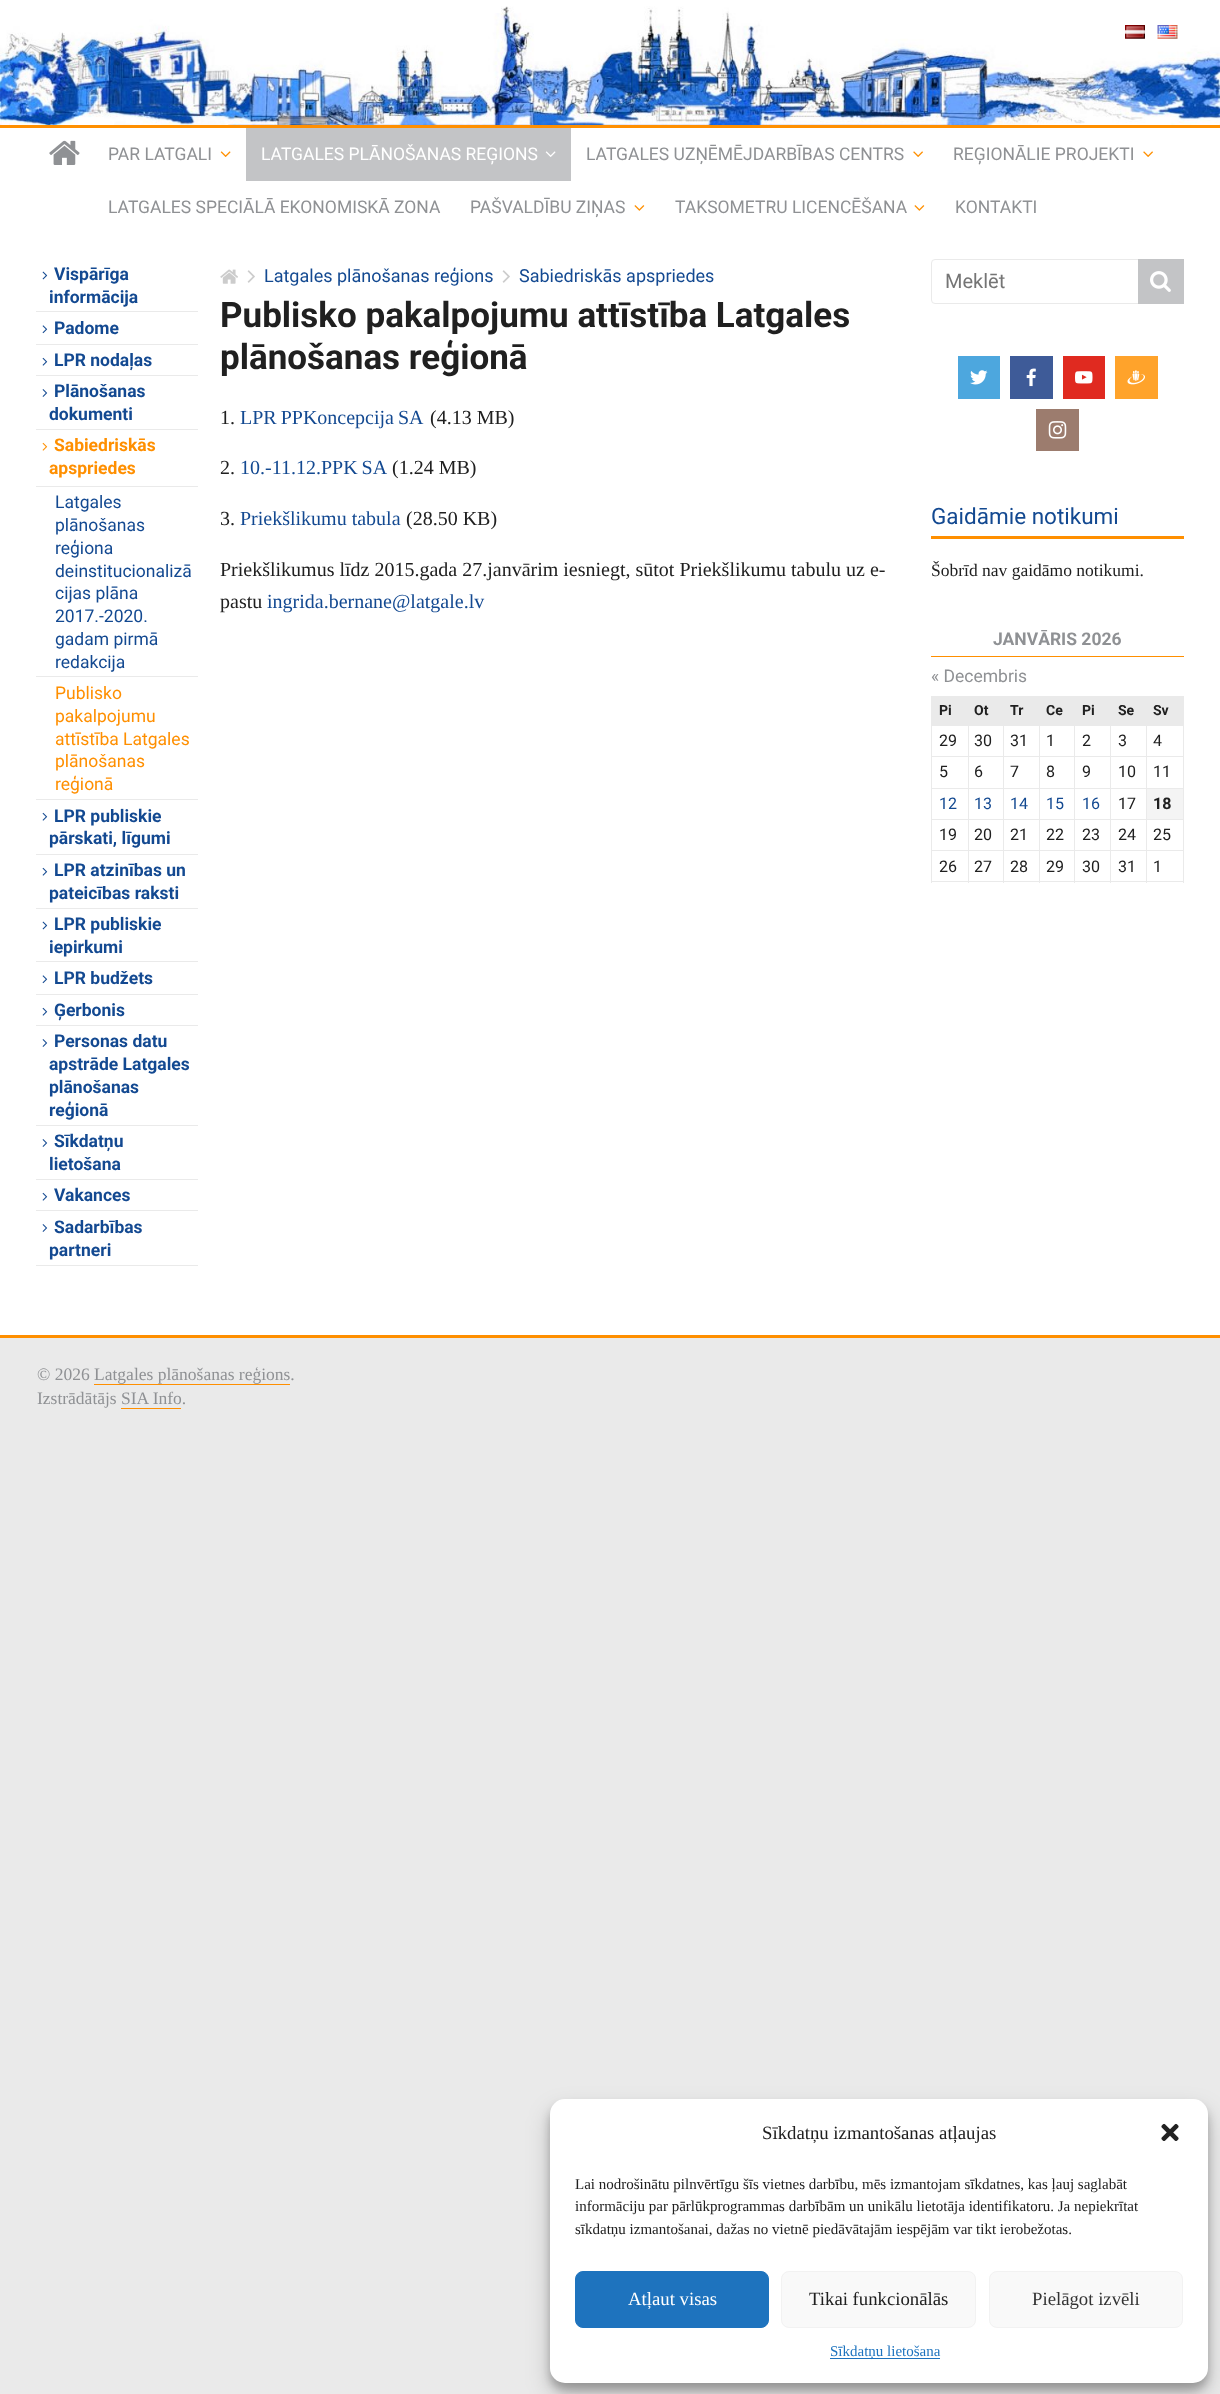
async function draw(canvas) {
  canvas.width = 1220;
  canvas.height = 2394;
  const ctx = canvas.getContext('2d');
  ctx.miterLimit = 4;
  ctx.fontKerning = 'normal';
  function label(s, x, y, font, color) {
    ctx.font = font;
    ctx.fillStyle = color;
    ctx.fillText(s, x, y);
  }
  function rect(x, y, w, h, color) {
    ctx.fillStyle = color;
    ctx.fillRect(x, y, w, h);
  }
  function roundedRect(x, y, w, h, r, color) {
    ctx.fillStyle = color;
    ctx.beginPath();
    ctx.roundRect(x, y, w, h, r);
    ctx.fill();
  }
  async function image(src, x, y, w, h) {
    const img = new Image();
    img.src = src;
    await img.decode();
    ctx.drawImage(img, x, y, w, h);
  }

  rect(0, 0, 1220, 2394, '#eaeaea');
  rect(0, 0, 1220, 1335, '#fff');
  await image('assets/img1.png', 0, 6, 1220, 119);
  await image('assets/img2.png', 1125, 25, 20, 14);
  await image('assets/img3.png', 1157, 25, 21, 14);
  rect(0, 125, 1220, 3, '#ff8f00');
  await image('assets/img4.png', 49, 140, 31, 25);
  label('PAR LATGALI', 108, 160, '17.5px Roboto', '#8f9194');
  await image('assets/img5.png', 220, 151, 11, 6);
  rect(246, 128, 325, 53, '#c3c4c6');
  label('LATGALES PLĀNOŠANAS REĢIONS', 261, 160, '17.5px Roboto', '#fff');
  await image('assets/img6.png', 545, 151, 11, 6);
  label('LATGALES UZŅĒMĒJDARBĪBAS CENTRS', 586, 160, '17.5px Roboto', '#8f9194');
  await image('assets/img7.png', 913, 151, 10, 6);
  label('REĢIONĀLIE PROJEKTI', 953, 160, '17.5px Roboto', '#8f9194');
  await image('assets/img7.png', 1143, 151, 10, 6);
  label('LATGALES SPECIĀLĀ EKONOMISKĀ ZONA', 108, 213, '17.5px Roboto', '#8f9194');
  label('PAŠVALDĪBU ZIŅAS', 470, 213, '17.5px Roboto', '#8f9194');
  await image('assets/img8.png', 634, 205, 11, 6);
  label('TAKSOMETRU LICENCĒŠANA', 675, 213, '17.5px Roboto', '#8f9194');
  await image('assets/img8.png', 914, 205, 11, 6);
  label('KONTAKTI', 955, 213, '17.5px Roboto', '#8f9194');
  rect(36, 311, 162, 1, '#eaeaea');
  await image('assets/img9.png', 42, 271, 6, 9);
  label('Vispārīga', 54, 280, 'bold 17.5px Roboto', '#134991');
  label('informācija', 49, 303, 'bold 17.5px Roboto', '#134991');
  rect(36, 344, 162, 1, '#eaeaea');
  await image('assets/img10.png', 42, 325, 6, 9);
  label('Padome', 54, 334, 'bold 17.5px Roboto', '#134991');
  rect(36, 375, 162, 1, '#eaeaea');
  await image('assets/img11.png', 42, 357, 6, 9);
  label('LPR nodaļas', 54, 366, 'bold 17.5px Roboto', '#134991');
  rect(36, 429, 162, 1, '#eaeaea');
  await image('assets/img12.png', 42, 389, 6, 8);
  label('Plānošanas', 54, 397, 'bold 17.5px Roboto', '#134991');
  label('dokumenti', 49, 420, 'bold 17.5px Roboto', '#134991');
  rect(36, 799, 162, 1, '#eaeaea');
  await image('assets/img13.png', 42, 442, 6, 9);
  label('Sabiedriskās', 54, 451, 'bold 17.5px Roboto', '#ff8f00');
  label('apspriedes', 49, 474, 'bold 17.5px Roboto', '#ff8f00');
  rect(36, 486, 162, 1, '#eaeaea');
  rect(36, 676, 162, 1, '#eaeaea');
  label('Latgales', 55, 508, '17.5px Roboto', '#134991');
  label('plānošanas', 55, 531, '17.5px Roboto', '#134991');
  label('reģiona', 55, 554, '17.5px Roboto', '#134991');
  label('deinstitucionalizā', 55, 577, '17.5px Roboto', '#134991');
  label('cijas plāna', 55, 599, '17.5px Roboto', '#134991');
  label('2017.-2020.', 55, 622, '17.5px Roboto', '#134991');
  label('gadam pirmā', 55, 645, '17.5px Roboto', '#134991');
  label('redakcija', 55, 668, '17.5px Roboto', '#134991');
  label('Publisko', 55, 699, '17.5px Roboto', '#ff8f00');
  label('pakalpojumu', 55, 722, '17.5px Roboto', '#ff8f00');
  label('attīstība Latgales', 55, 745, '17.5px Roboto', '#ff8f00');
  label('plānošanas', 55, 767, '17.5px Roboto', '#ff8f00');
  label('reģionā', 55, 790, '17.5px Roboto', '#ff8f00');
  rect(36, 854, 162, 1, '#eaeaea');
  await image('assets/img11.png', 42, 812, 6, 9);
  label('LPR publiskie', 54, 822, 'bold 17.5px Roboto', '#134991');
  label('pārskati, līgumi', 49, 844, 'bold 17.5px Roboto', '#134991');
  rect(36, 908, 162, 1, '#eaeaea');
  await image('assets/img11.png', 42, 867, 6, 9);
  label('LPR atzinības un', 54, 876, 'bold 17.5px Roboto', '#134991');
  label('pateicības raksti', 49, 899, 'bold 17.5px Roboto', '#134991');
  rect(36, 961, 162, 1, '#eaeaea');
  await image('assets/img9.png', 42, 921, 6, 9);
  label('LPR publiskie', 54, 930, 'bold 17.5px Roboto', '#134991');
  label('iepirkumi', 49, 953, 'bold 17.5px Roboto', '#134991');
  rect(36, 994, 162, 1, '#eaeaea');
  await image('assets/img10.png', 42, 975, 6, 9);
  label('LPR budžets', 54, 984, 'bold 17.5px Roboto', '#134991');
  rect(36, 1025, 162, 1, '#eaeaea');
  await image('assets/img11.png', 42, 1007, 6, 9);
  label('Ģerbonis', 54, 1016, 'bold 17.5px Roboto', '#134991');
  rect(36, 1125, 162, 1, '#eaeaea');
  await image('assets/img12.png', 42, 1039, 6, 8);
  label('Personas datu', 54, 1047, 'bold 17.5px Roboto', '#134991');
  label('apstrāde Latgales', 49, 1070, 'bold 17.5px Roboto', '#134991');
  label('plānošanas', 49, 1093, 'bold 17.5px Roboto', '#134991');
  label('reģionā', 49, 1116, 'bold 17.5px Roboto', '#134991');
  rect(36, 1179, 162, 1, '#eaeaea');
  await image('assets/img12.png', 42, 1139, 6, 8);
  label('Sīkdatņu', 54, 1147, 'bold 17.5px Roboto', '#134991');
  label('lietošana', 49, 1170, 'bold 17.5px Roboto', '#134991');
  rect(36, 1210, 162, 1, '#eaeaea');
  await image('assets/img11.png', 42, 1192, 6, 9);
  label('Vakances', 54, 1201, 'bold 17.5px Roboto', '#134991');
  rect(36, 1265, 162, 1, '#eaeaea');
  await image('assets/img12.png', 42, 1224, 6, 8);
  label('Sadarbības', 54, 1233, 'bold 17.5px Roboto', '#134991');
  label('partneri', 49, 1256, 'bold 17.5px Roboto', '#134991');
  await image('assets/img14.png', 220, 269, 18, 15);
  await image('assets/img15.png', 247, 270, 8, 13);
  label('Latgales plānošanas reģions', 264, 282, '18px Roboto', '#134991');
  await image('assets/img15.png', 502, 270, 8, 13);
  label('Sabiedriskās apspriedes', 519, 282, '18px Roboto', '#134991');
  label('Publisko pakalpojumu attīstība Latgales', 220, 327, 'bold 35px Roboto', '#202020');
  label('plānošanas reģionā', 220, 369, 'bold 35px Roboto', '#202020');
  label('1.', 220, 424, '20px Liberation Serif', '#202020');
  ctx.wordSpacing = '-1px';
  label('LPR PPKoncepcija SA', 240, 424, '20px Liberation Serif', '#134991');
  ctx.wordSpacing = '0px';
  label('(4.13 MB)', 430, 424, '20px Liberation Serif', '#202020');
  label('2.', 220, 474, '20px Liberation Serif', '#202020');
  ctx.wordSpacing = '-1px';
  label('10.-11.12.PPK SA', 240, 474, '20px Liberation Serif', '#134991');
  ctx.wordSpacing = '0px';
  label('(1.24 MB)', 392, 474, '20px Liberation Serif', '#202020');
  label('3.', 220, 525, '20px Liberation Serif', '#202020');
  label('Priekšlikumu tabula', 240, 525, '20px Liberation Serif', '#134991');
  label('(28.50 KB)', 406, 525, '20px Liberation Serif', '#202020');
  label('Priekšlikumus līdz 2015.gada 27.janvārim iesniegt, sūtot Priekšlikumu tabulu uz e-', 220, 576, '20px Liberation Serif', '#202020');
  label('pastu', 220, 608, '20px Liberation Serif', '#202020');
  label('ingrida.bernane@latgale.lv', 267, 608, '20px Liberation Serif', '#134991');
  ctx.beginPath();
  ctx.roundRect(931.5, 259.5, 252, 44, 3.5);
  ctx.strokeStyle = '#eaeaea';
  ctx.stroke();
  label('Meklēt', 945, 288, '20px Roboto', '#757575');
  rect(1138, 259, 46, 45, '#c3c4c6');
  await image('assets/img16.png', 1150, 271, 21, 21);
  rect(958, 356, 42, 43, '#4da7de');
  await image('assets/img17.png', 970, 370, 18, 15);
  rect(1010, 356, 43, 43, '#3e5b98');
  await image('assets/img18.png', 1026, 368, 10, 19);
  rect(1063, 356, 42, 43, '#e02a20');
  await image('assets/img19.png', 1075, 371, 18, 13);
  rect(1115, 356, 43, 43, '#ffa32b');
  await image('assets/img20.png', 1127, 370, 18, 15);
  rect(1036, 409, 43, 42, '#9c7c6e');
  await image('assets/img21.png', 1048, 421, 19, 18);
  rect(931, 536, 253, 3, '#ff8f00');
  label('Gaidāmie notikumi', 931, 524, '22.5px Roboto', '#134991');
  label('Šobrīd nav gaidāmo notikumi.', 931, 576, '17.5px Liberation Serif', '#202020');
  rect(931, 656, 253, 1, '#ff8f00');
  label('JANVĀRIS 2026', 993, 645, 'bold 17.5px Roboto', '#8f9194');
  label('« Decembris', 931, 682, '17.5px Roboto', '#8f9194');
  rect(931, 696, 215, 29, '#eaeaea');
  label('Pi', 939, 715, 'bold 14px Roboto', '#202020');
  label('Ot', 974, 715, 'bold 14px Roboto', '#202020');
  label('Tr', 1010, 715, 'bold 14px Roboto', '#202020');
  label('Ce', 1046, 715, 'bold 14px Roboto', '#202020');
  label('Pi', 1082, 715, 'bold 14px Roboto', '#202020');
  label('Se', 1118, 715, 'bold 14px Roboto', '#202020');
  rect(1146, 697, 37, 28, '#eaeaea');
  rect(1146, 696, 38, 1, '#eaeaea');
  rect(1146, 725, 38, 1, '#eaeaea');
  rect(1146, 756, 38, 1, '#eaeaea');
  rect(1146, 788, 38, 1, '#eaeaea');
  rect(1146, 819, 38, 1, '#eaeaea');
  rect(1146, 850, 38, 1, '#eaeaea');
  rect(1183, 850, 1, 33, '#eaeaea');
  rect(1183, 819, 1, 32, '#eaeaea');
  rect(1183, 788, 1, 32, '#eaeaea');
  rect(1183, 756, 1, 33, '#eaeaea');
  rect(1183, 725, 1, 33, '#eaeaea');
  rect(1183, 696, 1, 30, '#eaeaea');
  label('Sv', 1153, 715, 'bold 14px Roboto', '#202020');
  rect(1146, 881, 38, 1, '#eaeaea');
  rect(1146, 850, 1, 33, '#eaeaea');
  rect(1110, 850, 38, 1, '#eaeaea');
  rect(1146, 819, 1, 32, '#eaeaea');
  rect(1110, 819, 38, 1, '#eaeaea');
  rect(1146, 788, 1, 32, '#eaeaea');
  rect(1110, 788, 38, 1, '#eaeaea');
  rect(1146, 756, 1, 33, '#eaeaea');
  rect(1110, 756, 38, 1, '#eaeaea');
  rect(1146, 725, 1, 33, '#eaeaea');
  rect(1110, 725, 38, 1, '#eaeaea');
  rect(1110, 881, 38, 1, '#eaeaea');
  rect(1110, 850, 1, 33, '#eaeaea');
  rect(1074, 850, 37, 1, '#eaeaea');
  rect(1110, 819, 1, 32, '#eaeaea');
  rect(1074, 819, 37, 1, '#eaeaea');
  rect(1110, 788, 1, 32, '#eaeaea');
  rect(1074, 788, 37, 1, '#eaeaea');
  rect(1110, 756, 1, 33, '#eaeaea');
  rect(1074, 756, 37, 1, '#eaeaea');
  rect(1110, 725, 1, 33, '#eaeaea');
  rect(1074, 725, 37, 1, '#eaeaea');
  rect(1074, 881, 37, 1, '#eaeaea');
  rect(1074, 850, 1, 33, '#eaeaea');
  rect(1039, 850, 36, 1, '#eaeaea');
  rect(1074, 819, 1, 32, '#eaeaea');
  rect(1039, 819, 36, 1, '#eaeaea');
  rect(1074, 788, 1, 32, '#eaeaea');
  rect(1039, 788, 36, 1, '#eaeaea');
  rect(1074, 756, 1, 33, '#eaeaea');
  rect(1039, 756, 36, 1, '#eaeaea');
  rect(1074, 725, 1, 33, '#eaeaea');
  rect(1039, 725, 36, 1, '#eaeaea');
  rect(1039, 881, 36, 1, '#eaeaea');
  rect(1039, 850, 1, 33, '#eaeaea');
  rect(1003, 850, 37, 1, '#eaeaea');
  rect(1039, 819, 1, 32, '#eaeaea');
  rect(1003, 819, 37, 1, '#eaeaea');
  rect(1039, 788, 1, 32, '#eaeaea');
  rect(1003, 788, 37, 1, '#eaeaea');
  rect(1039, 756, 1, 33, '#eaeaea');
  rect(1003, 756, 37, 1, '#eaeaea');
  rect(1039, 725, 1, 33, '#eaeaea');
  rect(1003, 725, 37, 1, '#eaeaea');
  rect(1003, 881, 37, 1, '#eaeaea');
  rect(1003, 850, 1, 33, '#eaeaea');
  rect(968, 850, 36, 1, '#eaeaea');
  rect(1003, 819, 1, 32, '#eaeaea');
  rect(968, 819, 36, 1, '#eaeaea');
  rect(1003, 788, 1, 32, '#eaeaea');
  rect(968, 788, 36, 1, '#eaeaea');
  rect(1003, 756, 1, 33, '#eaeaea');
  rect(968, 756, 36, 1, '#eaeaea');
  rect(1003, 725, 1, 33, '#eaeaea');
  rect(968, 725, 36, 1, '#eaeaea');
  rect(968, 881, 36, 1, '#eaeaea');
  rect(968, 850, 1, 33, '#eaeaea');
  rect(931, 850, 38, 1, '#eaeaea');
  rect(968, 819, 1, 32, '#eaeaea');
  rect(931, 819, 38, 1, '#eaeaea');
  rect(968, 788, 1, 32, '#eaeaea');
  rect(931, 788, 38, 1, '#eaeaea');
  rect(968, 756, 1, 33, '#eaeaea');
  rect(931, 756, 38, 1, '#eaeaea');
  rect(968, 725, 1, 33, '#eaeaea');
  rect(931, 725, 38, 1, '#eaeaea');
  rect(931, 881, 38, 1, '#eaeaea');
  rect(931, 850, 1, 33, '#eaeaea');
  rect(931, 819, 1, 32, '#eaeaea');
  rect(931, 788, 1, 32, '#eaeaea');
  rect(931, 756, 1, 33, '#eaeaea');
  rect(931, 725, 1, 33, '#eaeaea');
  label('29', 939, 746, '16px Roboto', '#202020');
  label('30', 974, 746, '16px Roboto', '#202020');
  label('31', 1010, 746, '16px Roboto', '#202020');
  label('1', 1046, 746, '16px Roboto', '#202020');
  label('2', 1082, 746, '16px Roboto', '#202020');
  label('3', 1118, 746, '16px Roboto', '#202020');
  label('4', 1153, 746, '16px Roboto', '#202020');
  label('5', 939, 777, '16px Roboto', '#202020');
  label('6', 974, 777, '16px Roboto', '#202020');
  label('7', 1010, 777, '16px Roboto', '#202020');
  label('8', 1046, 777, '16px Roboto', '#202020');
  label('9', 1082, 777, '16px Roboto', '#202020');
  label('10', 1118, 777, '16px Roboto', '#202020');
  label('11', 1153, 777, '16px Roboto', '#202020');
  label('12', 939, 809, '16px Roboto', '#134991');
  label('13', 974, 809, '16px Roboto', '#134991');
  label('14', 1010, 809, '16px Roboto', '#134991');
  label('15', 1046, 809, '16px Roboto', '#134991');
  label('16', 1082, 809, '16px Roboto', '#134991');
  label('17', 1118, 809, '16px Roboto', '#202020');
  rect(1147, 789, 36, 30, '#f4f4f4');
  label('18', 1153, 809, 'bold 16px Roboto', '#202020');
  label('19', 939, 840, '16px Roboto', '#202020');
  label('20', 974, 840, '16px Roboto', '#202020');
  label('21', 1010, 840, '16px Roboto', '#202020');
  label('22', 1046, 840, '16px Roboto', '#202020');
  label('23', 1082, 840, '16px Roboto', '#202020');
  label('24', 1118, 840, '16px Roboto', '#202020');
  label('25', 1153, 840, '16px Roboto', '#202020');
  label('26', 939, 872, '16px Roboto', '#202020');
  label('27', 974, 872, '16px Roboto', '#202020');
  label('28', 1010, 872, '16px Roboto', '#202020');
  label('29', 1046, 872, '16px Roboto', '#202020');
  label('30', 1082, 872, '16px Roboto', '#202020');
  label('31', 1118, 872, '16px Roboto', '#202020');
  label('1', 1153, 872, '16px Roboto', '#202020');
  rect(0, 1335, 1220, 3, '#ff8f00');
  label('© 2026 Latgales plānošanas reģions.', 37, 1380, '17.5px Liberation Serif', '#8f9194');
  rect(94, 1384, 196, 1, '#ff8f00');
  label('Izstrādātājs SIA Info.', 37, 1404, '17.5px Liberation Serif', '#8f9194');
  rect(121, 1408, 60, 1, '#ff8f00');
  ctx.fillStyle = '#0000003b';
  ctx.filter = 'blur(4px)';
  ctx.beginPath();
  ctx.roundRect(550, 2106, 658, 284, 15);
  ctx.fill();
  ctx.filter = 'none';
  ctx.fillStyle = '#00000030';
  ctx.filter = 'blur(12.5px)';
  ctx.beginPath();
  ctx.roundRect(550, 2111, 658, 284, 15);
  ctx.fill();
  ctx.filter = 'none';
  roundedRect(550, 2099, 658, 284, 15, '#fff');
  label('Sīkdatņu izmantošanas atļaujas', 762, 2139, '18.75px Liberation Serif', '#202020');
  await image('assets/img22.png', 1161, 2123, 18, 18);
  label('Lai nodrošinātu pilnvērtīgu šīs vietnes darbību, mēs izmantojam sīkdatnes, kas ļauj saglabāt', 575, 2189, '15px Liberation Serif', '#202020');
  label('informāciju par pārlūkprogrammas darbībām un unikālu lietotāja identifikatoru. Ja nepiekrītat', 575, 2211, '15px Liberation Serif', '#202020');
  label('sīkdatņu izmantošanai, dažas no vietnē piedāvātajām iespējām var tikt ierobežotas.', 575, 2234, '15px Liberation Serif', '#202020');
  ctx.fillStyle = '#1e73be';
  ctx.beginPath();
  ctx.roundRect(575.5, 2271.5, 193, 56, 7.5);
  ctx.fill();
  ctx.strokeStyle = '#1e73be';
  ctx.stroke();
  label('Atļaut visas', 628, 2305, '18.75px Liberation Serif', '#fff');
  ctx.fillStyle = '#f9f9f9';
  ctx.beginPath();
  ctx.roundRect(781.5, 2271.5, 194, 56, 7.5);
  ctx.fill();
  ctx.strokeStyle = '#f2f2f2';
  ctx.stroke();
  label('Tikai funkcionālās', 809, 2305, '18.75px Liberation Serif', '#202020');
  ctx.fillStyle = '#f9f9f9';
  ctx.beginPath();
  ctx.roundRect(989.5, 2271.5, 193, 56, 7.5);
  ctx.fill();
  ctx.stroke();
  label('Pielāgot izvēli', 1032, 2305, '18.75px Liberation Serif', '#333');
  rect(830, 2358, 110, 1, '#1e73be');
  label('Sīkdatņu lietošana', 830, 2356, '15px Liberation Serif', '#1e73be');
}

draw(document.querySelector('canvas'));
